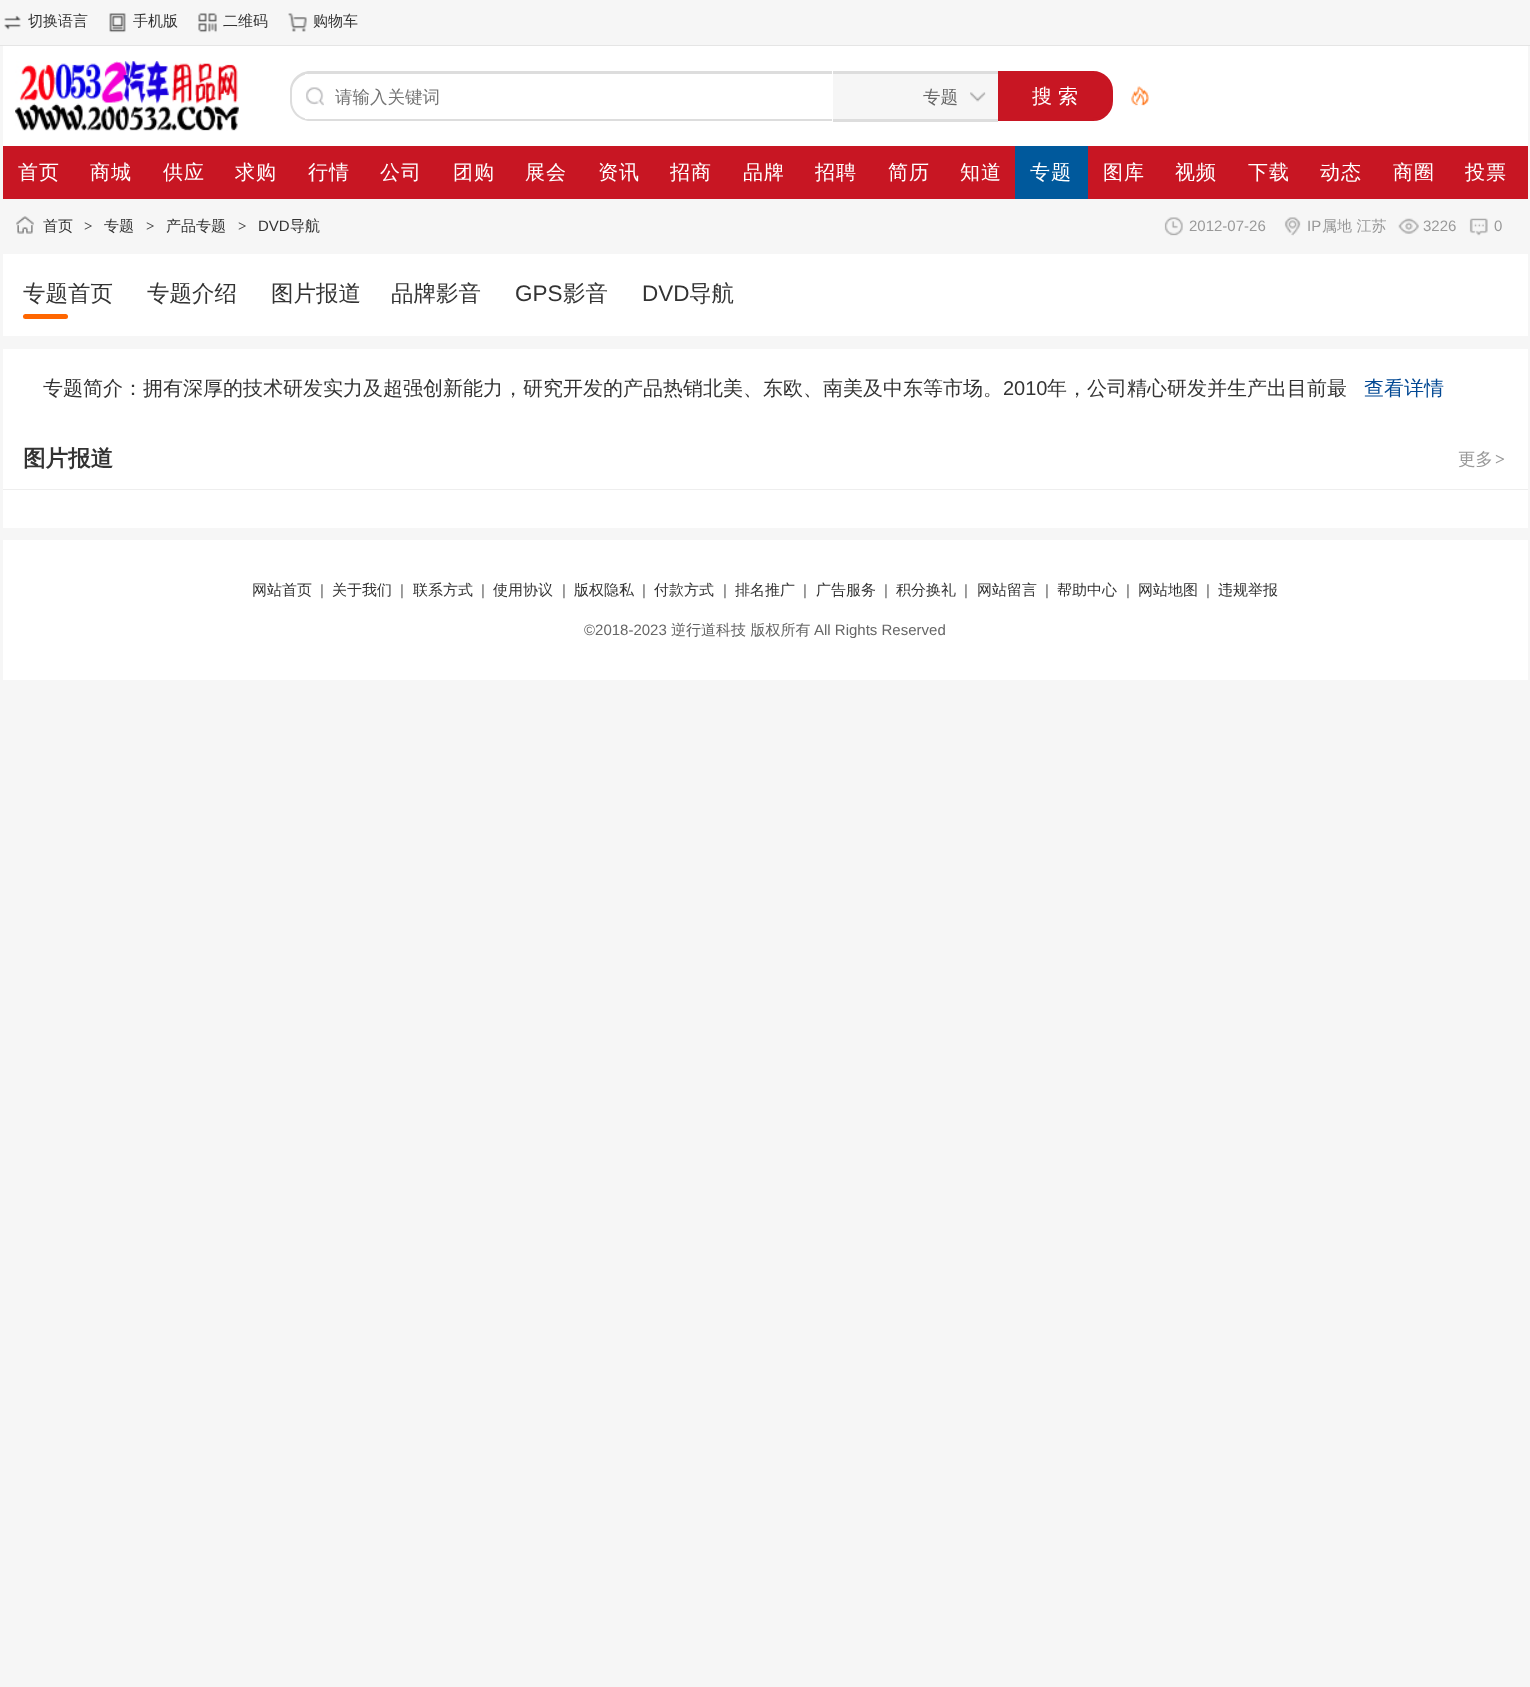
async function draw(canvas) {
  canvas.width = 1530;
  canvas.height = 1687;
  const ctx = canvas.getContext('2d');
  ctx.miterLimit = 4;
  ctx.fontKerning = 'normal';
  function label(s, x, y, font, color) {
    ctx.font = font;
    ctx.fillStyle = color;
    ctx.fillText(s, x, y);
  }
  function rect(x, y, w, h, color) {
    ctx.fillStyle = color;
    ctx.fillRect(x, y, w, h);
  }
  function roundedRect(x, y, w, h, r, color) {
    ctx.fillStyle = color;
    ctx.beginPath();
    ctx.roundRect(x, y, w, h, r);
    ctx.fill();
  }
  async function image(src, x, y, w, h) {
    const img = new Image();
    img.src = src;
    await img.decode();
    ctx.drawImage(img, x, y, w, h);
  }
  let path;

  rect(0, 0, 1530, 1687, '#f6f6f6');
  rect(0, 45, 1530, 1, '#e5e5e5');
  await image('assets/img1.png', 4, 15, 17, 15);
  label('切换语言', 28, 26, '500 15px WenQuanYi Zen Hei', '#333');
  await image('assets/img2.png', 109, 13, 17, 20);
  label('手机版', 133, 26, '500 15px WenQuanYi Zen Hei', '#333');
  await image('assets/img3.png', 198, 13, 19, 20);
  label('二维码', 223, 26, '500 15px WenQuanYi Zen Hei', '#333');
  await image('assets/img4.png', 288, 13, 19, 19);
  label('购物车', 313, 26, '500 15px WenQuanYi Zen Hei', '#333');
  rect(3, 46, 1525, 100, '#fff');
  await image('assets/img5.png', 15, 61, 224, 70);
  ctx.fillStyle = '#ddd';
  path = new Path2D('M310 71H832V121H310C299 121 290 112 290 101V91C290 80 299 71 310 71ZM310 74H832V119H310C300 119 292 111 292 101V91C292 82 300 74 310 74Z');
  ctx.fill(path, 'evenodd');
  rect(305, 74, 3, 45, '#fff');
  await image('assets/img6.png', 306, 87, 18, 19);
  label('请输入关键词', 335, 103, '500 17.5px WenQuanYi Zen Hei', '#757575');
  rect(833, 74, 165, 45, '#f6f6f6');
  rect(833, 71, 165, 3, '#ddd');
  rect(833, 119, 165, 3, '#ddd');
  await image('assets/img7.png', 970, 92, 16, 10);
  label('专题', 923, 103, '500 17.5px WenQuanYi Zen Hei', '#666');
  ctx.fillStyle = '#c81623';
  ctx.beginPath();
  ctx.roundRect(999.5, 72.5, 112, 47, [0, 18.5, 18.5, 0]);
  ctx.fill();
  ctx.strokeStyle = '#c81623';
  ctx.lineWidth = 3;
  ctx.stroke();
  label('搜 索', 1032, 103, '500 20px WenQuanYi Zen Hei', '#fff');
  await image('assets/img8.png', 1131, 86, 18, 20);
  rect(3, 146, 1525, 53, '#c81623');
  ctx.letterSpacing = '1px';
  label('首页', 18, 179, '500 20px WenQuanYi Zen Hei', '#fff');
  label('商城', 90, 179, '500 20px WenQuanYi Zen Hei', '#fff');
  label('供应', 163, 179, '500 20px WenQuanYi Zen Hei', '#fff');
  label('求购', 235, 179, '500 20px WenQuanYi Zen Hei', '#fff');
  label('行情', 308, 179, '500 20px WenQuanYi Zen Hei', '#fff');
  label('公司', 380, 179, '500 20px WenQuanYi Zen Hei', '#fff');
  label('团购', 453, 179, '500 20px WenQuanYi Zen Hei', '#fff');
  label('展会', 525, 179, '500 20px WenQuanYi Zen Hei', '#fff');
  label('资讯', 598, 179, '500 20px WenQuanYi Zen Hei', '#fff');
  label('招商', 670, 179, '500 20px WenQuanYi Zen Hei', '#fff');
  label('品牌', 743, 179, '500 20px WenQuanYi Zen Hei', '#fff');
  label('招聘', 815, 179, '500 20px WenQuanYi Zen Hei', '#fff');
  label('简历', 888, 179, '500 20px WenQuanYi Zen Hei', '#fff');
  label('知道', 960, 179, '500 20px WenQuanYi Zen Hei', '#fff');
  rect(1015, 146, 73, 53, '#00599c');
  label('专题', 1030, 179, '500 20px WenQuanYi Zen Hei', '#fff');
  label('图库', 1103, 179, '500 20px WenQuanYi Zen Hei', '#fff');
  label('视频', 1175, 179, '500 20px WenQuanYi Zen Hei', '#fff');
  label('下载', 1248, 179, '500 20px WenQuanYi Zen Hei', '#fff');
  label('动态', 1320, 179, '500 20px WenQuanYi Zen Hei', '#fff');
  label('商圈', 1393, 179, '500 20px WenQuanYi Zen Hei', '#fff');
  label('投票', 1465, 179, '500 20px WenQuanYi Zen Hei', '#fff');
  await image('assets/img9.png', 16, 216, 18, 18);
  ctx.letterSpacing = '0px';
  label('首页', 43, 231, '500 15px WenQuanYi Zen Hei', '#333');
  label('>', 84, 231, 'bold 15px Liberation Serif', '#444');
  label('专题', 104, 231, '500 15px WenQuanYi Zen Hei', '#333');
  label('>', 146, 231, 'bold 15px Liberation Serif', '#444');
  label('产品专题', 166, 231, '500 15px WenQuanYi Zen Hei', '#333');
  label('>', 238, 231, 'bold 15px Liberation Serif', '#444');
  label('DVD', 258, 231, '15px Liberation Sans', '#333');
  label('导航', 290, 231, '500 15px WenQuanYi Zen Hei', '#333');
  await image('assets/img10.png', 1164, 217, 19, 19);
  label('2012-07-26', 1189, 231, '15px Liberation Sans', '#999');
  await image('assets/img11.png', 1284, 217, 17, 19);
  label('IP', 1307, 231, '15px Liberation Sans', '#999');
  label('属地 江苏', 1322, 231, '500 15px WenQuanYi Zen Hei', '#999');
  await image('assets/img12.png', 1398, 218, 21, 16);
  label('3226', 1423, 231, '15px Liberation Sans', '#999');
  await image('assets/img13.png', 1469, 218, 19, 18);
  label('0', 1494, 231, '15px Liberation Sans', '#999');
  rect(3, 254, 1525, 82, '#fff');
  label('专题首页', 23, 301, '500 22.5px WenQuanYi Zen Hei', '#333');
  roundedRect(23, 314, 45, 5, 2.5, '#f60');
  label('专题介绍', 147, 301, '500 22.5px WenQuanYi Zen Hei', '#333');
  label('图片报道', 271, 301, '500 22.5px WenQuanYi Zen Hei', '#333');
  label('品牌影音', 391, 301, '500 22.5px WenQuanYi Zen Hei', '#333');
  label('GPS', 515, 301, '22.5px Liberation Sans', '#333');
  label('影音', 563, 301, '500 22.5px WenQuanYi Zen Hei', '#333');
  label('DVD', 642, 301, '22.5px Liberation Sans', '#333');
  label('导航', 689, 301, '500 22.5px WenQuanYi Zen Hei', '#333');
  rect(3, 349, 1525, 179, '#fff');
  label('专题简介：拥有深厚的技术研发实力及超强创新能力，研究开发的产品热销北美、东欧、南美及中东等市场。', 43, 395, '500 20px WenQuanYi Zen Hei', '#333');
  label('2010', 1003, 395, '20px Liberation Sans', '#333');
  label('年，公司精心研发并生产出目前最', 1047, 395, '500 20px WenQuanYi Zen Hei', '#333');
  label('查看详情', 1364, 395, '500 20px WenQuanYi Zen Hei', '#024893');
  rect(3, 489, 1525, 1, '#eee');
  label('图片报道', 23, 466, 'bold 22.5px WenQuanYi Zen Hei', '#333');
  label('更多', 1458, 465, '500 17.5px WenQuanYi Zen Hei', '#999');
  label('>', 1495, 465, 'bold 17.5px Liberation Serif', '#999');
  rect(3, 540, 1525, 140, '#fff');
  label('网站首页', 252, 595, '500 15px WenQuanYi Zen Hei', '#333');
  label('|', 320, 595, '15px Liberation Sans', '#666');
  label('关于我们', 332, 595, '500 15px WenQuanYi Zen Hei', '#333');
  label('|', 400, 595, '15px Liberation Sans', '#666');
  label('联系方式', 413, 595, '500 15px WenQuanYi Zen Hei', '#333');
  label('|', 481, 595, '15px Liberation Sans', '#666');
  label('使用协议', 493, 595, '500 15px WenQuanYi Zen Hei', '#333');
  label('|', 562, 595, '15px Liberation Sans', '#666');
  label('版权隐私', 574, 595, '500 15px WenQuanYi Zen Hei', '#333');
  label('|', 642, 595, '15px Liberation Sans', '#666');
  label('付款方式', 654, 595, '500 15px WenQuanYi Zen Hei', '#333');
  label('|', 723, 595, '15px Liberation Sans', '#666');
  label('排名推广', 735, 595, '500 15px WenQuanYi Zen Hei', '#333');
  label('|', 803, 595, '15px Liberation Sans', '#666');
  label('广告服务', 816, 595, '500 15px WenQuanYi Zen Hei', '#333');
  label('|', 884, 595, '15px Liberation Sans', '#666');
  label('积分换礼', 896, 595, '500 15px WenQuanYi Zen Hei', '#333');
  label('|', 964, 595, '15px Liberation Sans', '#666');
  label('网站留言', 977, 595, '500 15px WenQuanYi Zen Hei', '#333');
  label('|', 1045, 595, '15px Liberation Sans', '#666');
  label('帮助中心', 1057, 595, '500 15px WenQuanYi Zen Hei', '#333');
  label('|', 1126, 595, '15px Liberation Sans', '#666');
  label('网站地图', 1138, 595, '500 15px WenQuanYi Zen Hei', '#333');
  label('|', 1206, 595, '15px Liberation Sans', '#666');
  label('违规举报', 1218, 595, '500 15px WenQuanYi Zen Hei', '#333');
  label('©2018-2023', 584, 635, '15px Liberation Sans', '#666');
  label('逆行道科技 版权所有', 671, 635, '500 15px WenQuanYi Zen Hei', '#666');
  label('All Rights Reserved', 814, 635, '15px Liberation Sans', '#666');
}

draw(document.querySelector('canvas'));
